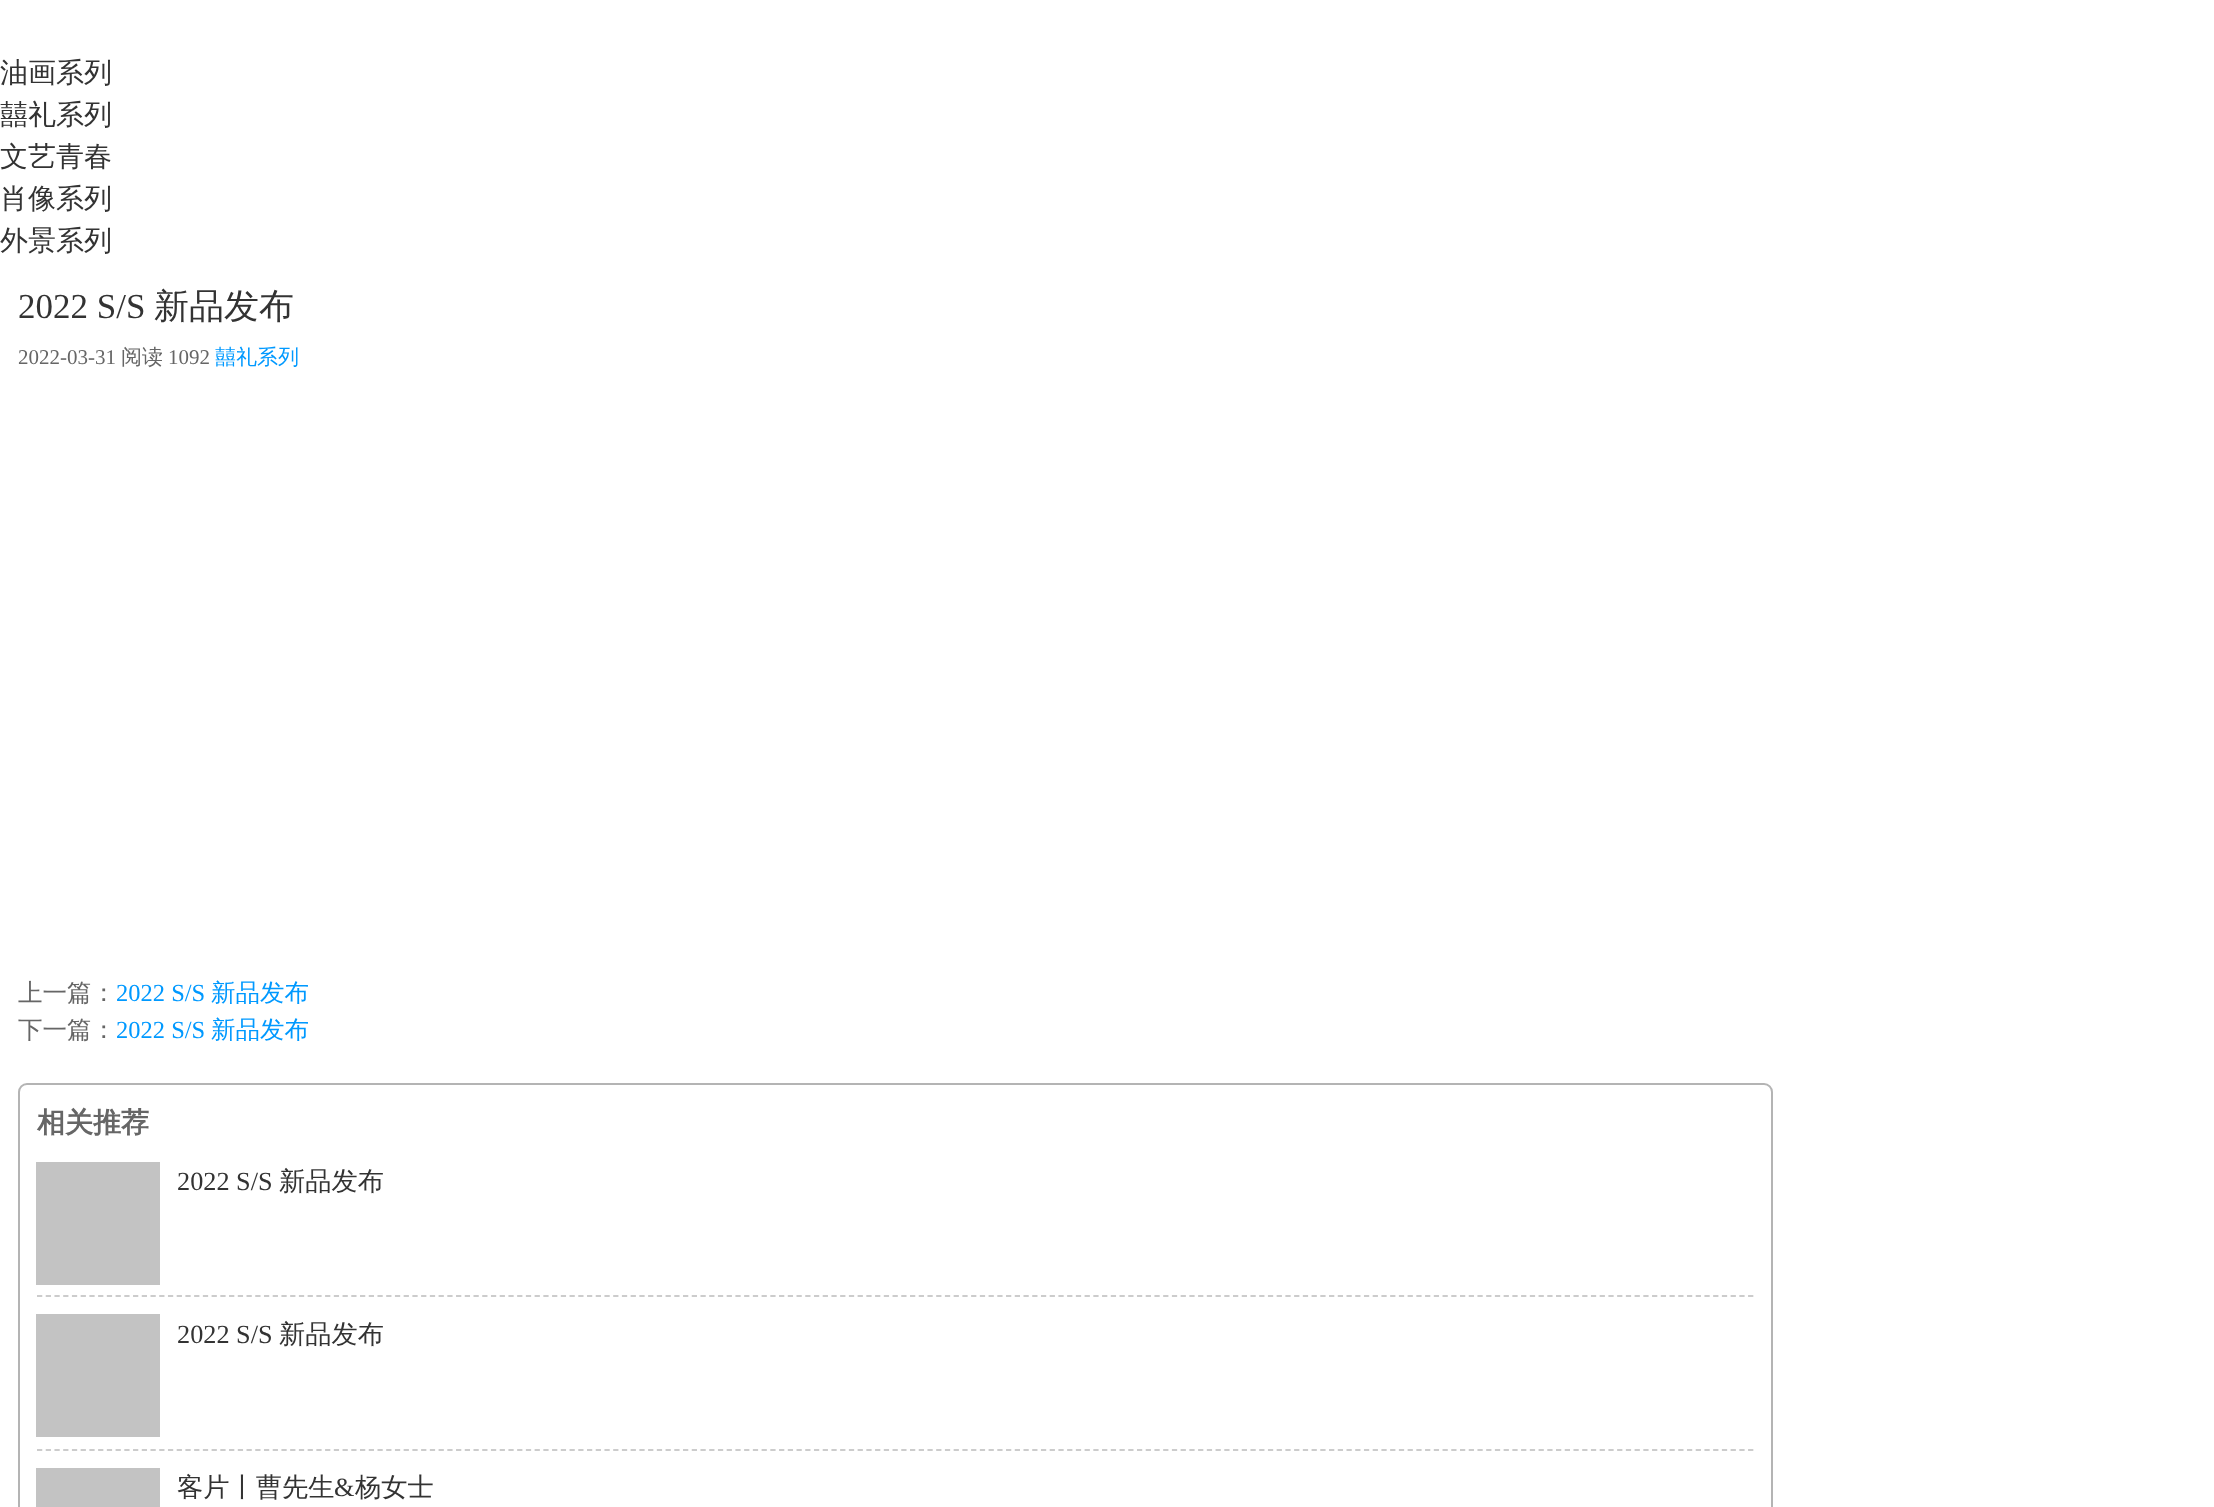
async function draw(canvas) {
  canvas.width = 2214;
  canvas.height = 1507;
  const ctx = canvas.getContext('2d');
  ctx.miterLimit = 4;
  ctx.fontKerning = 'normal';
  function label(s, x, y, font, color) {
    ctx.font = font;
    ctx.fillStyle = color;
    ctx.fillText(s, x, y);
  }
  function rect(x, y, w, h, color) {
    ctx.fillStyle = color;
    ctx.fillRect(x, y, w, h);
  }
  let path;

  rect(0, 0, 2214, 1507, '#fff');
  label('油画系列', 0, 82, '500 28px WenQuanYi Zen Hei', '#333');
  label('囍礼系列', 0, 124, '500 28px WenQuanYi Zen Hei', '#333');
  label('文艺青春', 0, 166, '500 28px WenQuanYi Zen Hei', '#333');
  label('肖像系列', 0, 208, '500 28px WenQuanYi Zen Hei', '#333');
  label('外景系列', 0, 250, '500 28px WenQuanYi Zen Hei', '#333');
  label('2022 S/S', 18, 318, '35px Liberation Serif', '#333');
  label('新品发布', 154, 318, '500 35px WenQuanYi Zen Hei', '#333');
  label('2022-03-31', 18, 364, '21px Liberation Serif', '#666');
  label('阅读', 121, 364, '500 21px WenQuanYi Zen Hei', '#666');
  label('1092', 168, 364, '21px Liberation Serif', '#666');
  label('囍礼系列', 215, 364, '500 21px WenQuanYi Zen Hei', '#09f');
  label('上一篇：', 18, 1001, '500 24.5px WenQuanYi Zen Hei', '#666');
  label('2022 S/S', 116, 1001, '24.5px Liberation Serif', '#09f');
  label('新品发布', 211, 1001, '500 24.5px WenQuanYi Zen Hei', '#09f');
  label('下一篇：', 18, 1038, '500 24.5px WenQuanYi Zen Hei', '#666');
  label('2022 S/S', 116, 1038, '24.5px Liberation Serif', '#09f');
  label('新品发布', 211, 1038, '500 24.5px WenQuanYi Zen Hei', '#09f');
  ctx.beginPath();
  ctx.roundRect(19, 1084, 1753, 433, 8);
  ctx.strokeStyle = '#b4b4b4';
  ctx.lineWidth = 2;
  ctx.stroke();
  label('相关推荐', 37, 1132, 'bold 28px WenQuanYi Zen Hei', '#666');
  path = new Path2D('M37 1296H1753.5');
  ctx.strokeStyle = '#ccc';
  ctx.lineWidth = 1.8;
  ctx.setLineDash([5.25, 3.48]);
  ctx.stroke(path);
  rect(36, 1162, 124, 123, '#c3c3c3');
  label('2022 S/S', 177, 1190, '26.25px Liberation Serif', '#333');
  label('新品发布', 279, 1190, '500 26.25px WenQuanYi Zen Hei', '#333');
  path = new Path2D('M37 1450H1753.5');
  ctx.stroke(path);
  rect(36, 1314, 124, 123, '#c3c3c3');
  label('2022 S/S', 177, 1343, '26.25px Liberation Serif', '#333');
  label('新品发布', 279, 1343, '500 26.25px WenQuanYi Zen Hei', '#333');
  rect(36, 1468, 124, 39, '#c3c3c3');
  label('客片丨曹先生', 177, 1496, '500 26.25px WenQuanYi Zen Hei', '#333');
  label('&', 334, 1496, '26.25px Liberation Serif', '#333');
  label('杨女士', 355, 1496, '500 26.25px WenQuanYi Zen Hei', '#333');
}

draw(document.querySelector('canvas'));
